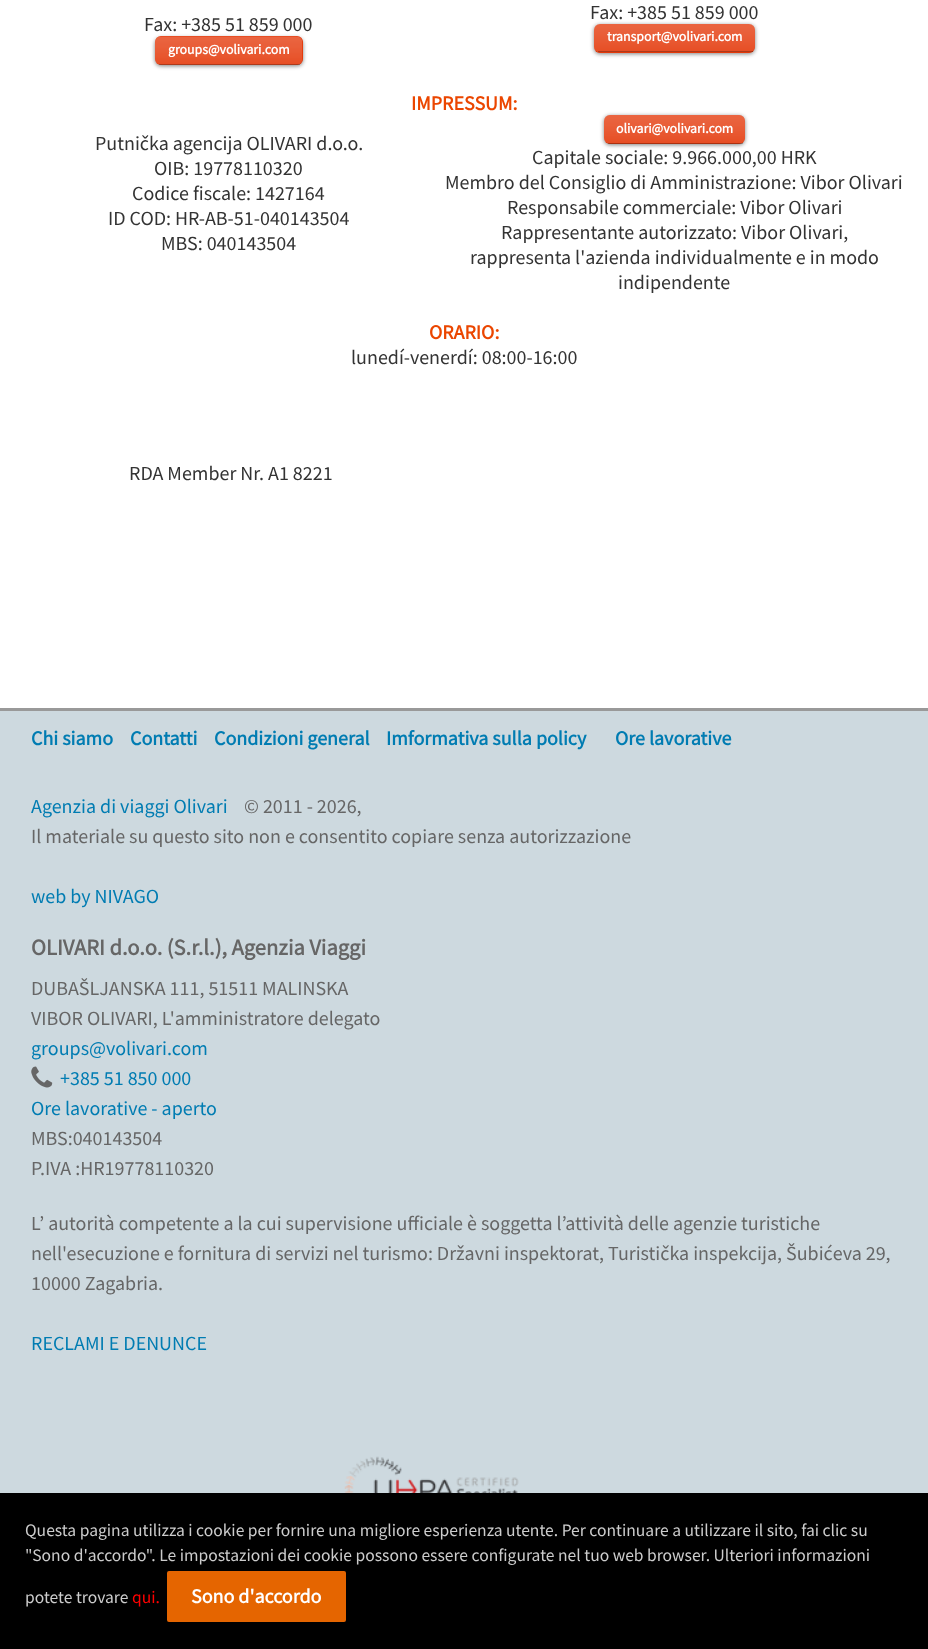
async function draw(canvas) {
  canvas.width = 928;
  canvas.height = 1649;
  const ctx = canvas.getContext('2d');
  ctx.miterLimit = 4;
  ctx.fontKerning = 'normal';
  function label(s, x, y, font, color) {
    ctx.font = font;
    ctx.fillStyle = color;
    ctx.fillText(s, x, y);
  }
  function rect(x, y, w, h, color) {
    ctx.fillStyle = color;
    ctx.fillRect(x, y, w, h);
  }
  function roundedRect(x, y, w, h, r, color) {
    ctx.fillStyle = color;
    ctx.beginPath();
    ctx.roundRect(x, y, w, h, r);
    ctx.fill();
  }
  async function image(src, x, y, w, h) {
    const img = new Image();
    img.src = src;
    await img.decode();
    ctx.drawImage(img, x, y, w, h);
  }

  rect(0, 0, 928, 1649, '#fff');
  label('Fax: +385 51 859 000', 144, 31, '20px Source Sans Pro', '#333');
  ctx.fillStyle = '#00000080';
  ctx.filter = 'blur(2px)';
  ctx.beginPath();
  ctx.roundRect(155, 38, 148, 28, 6);
  ctx.fill();
  ctx.filter = 'none';
  roundedRect(155, 36, 148, 29, 6, '#e33100');
  await image('assets/img1.png', 155, 36, 148, 29);
  rect(159, 64, 141, 1, '#00000040');
  label('groups@volivari.com', 168, 54, 'bold 13.75px Source Sans Pro', '#fff');
  label('Fax: +385 51 859 000', 590, 19, '20px Source Sans Pro', '#333');
  ctx.fillStyle = '#00000080';
  ctx.filter = 'blur(2px)';
  ctx.beginPath();
  ctx.roundRect(594, 25, 161, 29, 6);
  ctx.fill();
  ctx.filter = 'none';
  roundedRect(594, 24, 161, 29, 6, '#e33100');
  await image('assets/img2.png', 594, 24, 161, 29);
  rect(598, 51, 155, 1, '#00000040');
  label('transport@volivari.com', 607, 41, 'bold 13.75px Source Sans Pro', '#fff');
  label('IMPRESSUM:', 411, 110, 'bold 20px Source Sans Pro', '#eb4600');
  label('Putnička agencija OLIVARI d.o.o.', 95, 150, '20px Source Sans Pro', '#333');
  label('OIB: 19778110320', 154, 175, '20px Source Sans Pro', '#333');
  label('Codice fiscale: 1427164', 132, 200, '20px Source Sans Pro', '#333');
  label('ID COD: HR-AB-51-040143504', 108, 225, '20px Source Sans Pro', '#333');
  label('MBS: 040143504', 161, 250, '20px Source Sans Pro', '#333');
  ctx.fillStyle = '#00000080';
  ctx.filter = 'blur(2px)';
  ctx.beginPath();
  ctx.roundRect(604, 116, 141, 29, 6);
  ctx.fill();
  ctx.filter = 'none';
  roundedRect(604, 115, 141, 29, 6, '#e33100');
  await image('assets/img3.png', 604, 115, 141, 29);
  rect(608, 143, 135, 1, '#00000040');
  label('olivari@volivari.com', 616, 133, 'bold 13.75px Source Sans Pro', '#fff');
  label('Capitale sociale: 9.966.000,00 HRK', 532, 164, '20px Source Sans Pro', '#333');
  label('Membro del Consiglio di Amministrazione: Vibor Olivari', 445, 189, '20px Source Sans Pro', '#333');
  label('Responsabile commerciale: Vibor Olivari', 507, 214, '20px Source Sans Pro', '#333');
  label('Rappresentante autorizzato: Vibor Olivari,', 501, 239, '20px Source Sans Pro', '#333');
  label('rappresenta l\'azienda individualmente e in modo', 470, 264, '20px Source Sans Pro', '#333');
  label('indipendente', 618, 289, '20px Source Sans Pro', '#333');
  label('ORARIO:', 429, 339, 'bold 20px Source Sans Pro', '#eb4600');
  label('lunedí-venerdí: 08:00-16:00', 351, 364, '20px Source Sans Pro', '#333');
  label('RDA Member Nr. A1 8221', 129, 480, '20px Source Sans Pro', '#333');
  rect(0, 711, 928, 782, '#cdd9df');
  rect(0, 708, 928, 3, '#999');
  label('Chi siamo', 31, 745, 'bold 20px Source Sans Pro', '#007cb2');
  label('Contatti', 130, 745, 'bold 20px Source Sans Pro', '#007cb2');
  label('Condizioni general', 214, 745, 'bold 20px Source Sans Pro', '#007cb2');
  label('Imformativa sulla policy', 386, 745, 'bold 20px Source Sans Pro', '#007cb2');
  label('Ore lavorative', 615, 745, 'bold 20px Source Sans Pro', '#007cb2');
  label('Agenzia di viaggi Olivari', 31, 813, '20px Source Sans Pro', '#007cb2');
  label('© 2011 - 2026,', 244, 813, '20px Source Sans Pro', '#666');
  label('Il materiale su questo sito non e consentito copiare senza autorizzazione', 31, 843, '20px Source Sans Pro', '#666');
  label('web by NIVAGO', 31, 903, '20px Source Sans Pro', '#007cb2');
  label('OLIVARI d.o.o. (S.r.l.), Agenzia Viaggi', 31, 955, 'bold 22.5px Source Sans Pro', '#666');
  label('DUBAŠLJANSKA 111, 51511 MALINSKA', 31, 995, '20px Source Sans Pro', '#666');
  label('VIBOR OLIVARI, L\'amministratore delegato', 31, 1025, '20px Source Sans Pro', '#666');
  label('groups@volivari.com', 31, 1055, '20px Source Sans Pro', '#007cb2');
  await image('assets/img4.png', 31, 1066, 22, 22);
  label('+385 51 850 000', 60, 1085, '20px Source Sans Pro', '#007cb2');
  label('Ore lavorative - aperto', 31, 1115, '20px Source Sans Pro', '#007cb2');
  label('MBS:040143504', 31, 1145, '20px Source Sans Pro', '#666');
  label('P.IVA :HR19778110320', 31, 1175, '20px Source Sans Pro', '#666');
  label('L’ autorità competente a la cui supervisione ufficiale è soggetta l’attività delle agenzie turistiche', 31, 1230, '20px Source Sans Pro', '#666');
  label('nell\'esecuzione e fornitura di servizi nel turismo: Državni inspektorat, Turistička inspekcija, Šubićeva 29,', 31, 1260, '20px Source Sans Pro', '#666');
  label('10000 Zagabria.', 31, 1290, '20px Source Sans Pro', '#666');
  label('RECLAMI E DENUNCE', 31, 1350, '20px Source Sans Pro', '#007cb2');
  await image('assets/img5.png', 344, 1456, 175, 37);
  rect(0, 1493, 928, 156, '#000');
  label('Questa pagina utilizza i cookie per fornire una migliore esperienza utente. Per continuare a utilizzare il sito, fai clic su', 25, 1536, '17.5px Source Sans Pro', '#ccc');
  label('"Sono d\'accordo". Le impostazioni dei cookie possono essere configurate nel tuo web browser. Ulteriori informazioni', 25, 1561, '17.5px Source Sans Pro', '#ccc');
  label('potete trovare', 25, 1603, '17.5px Source Sans Pro', '#ccc');
  label('qui.', 132, 1603, '17.5px Source Sans Pro', '#f00');
  ctx.fillStyle = '#e56500';
  ctx.beginPath();
  ctx.roundRect(165.5, 1569.5, 182, 54, 3.5);
  ctx.fill();
  ctx.strokeStyle = '#000';
  ctx.lineWidth = 3;
  ctx.stroke();
  label('Sono d\'accordo', 191, 1603, 'bold 20px Source Sans Pro', '#fff');
}

draw(document.querySelector('canvas'));
